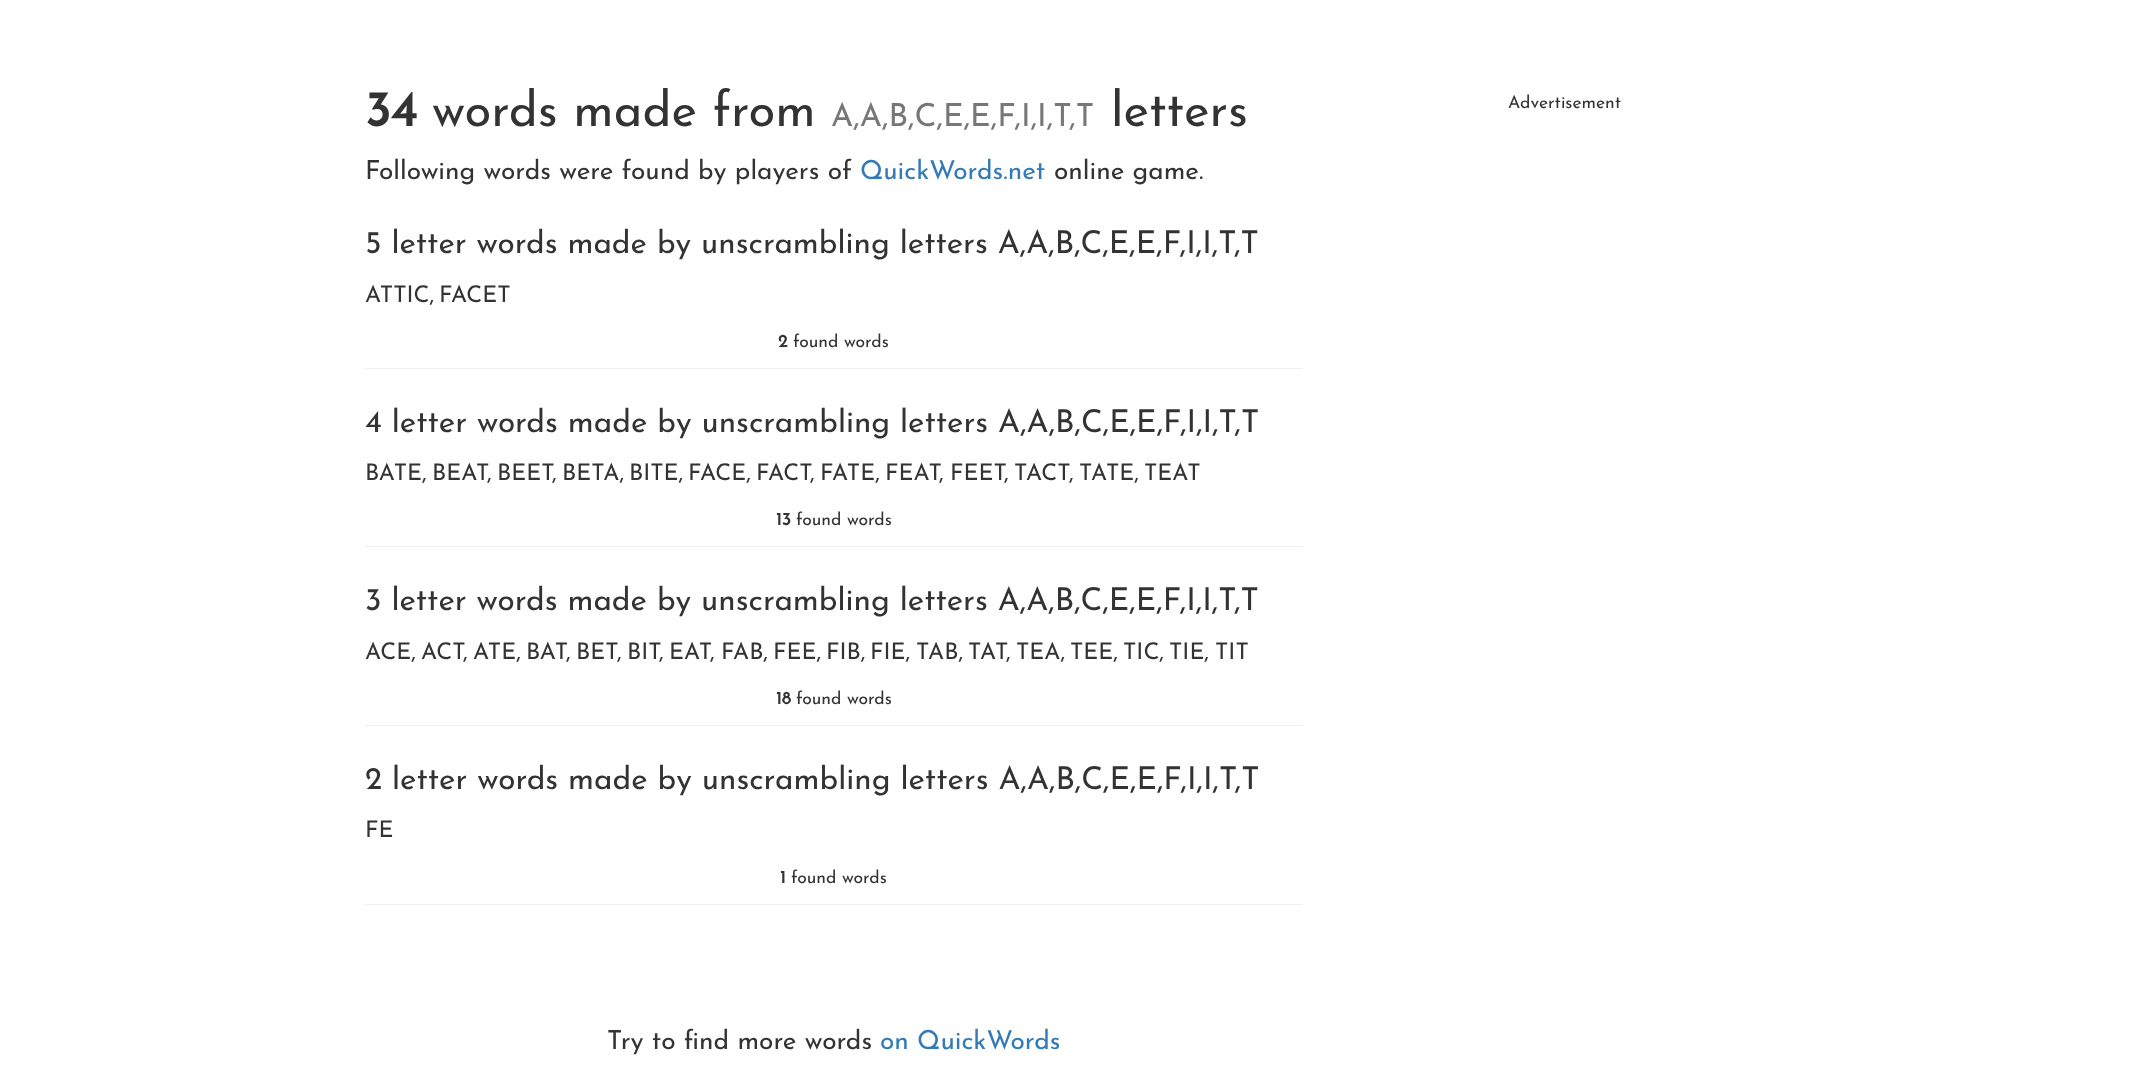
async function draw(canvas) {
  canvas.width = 2154;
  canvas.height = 1079;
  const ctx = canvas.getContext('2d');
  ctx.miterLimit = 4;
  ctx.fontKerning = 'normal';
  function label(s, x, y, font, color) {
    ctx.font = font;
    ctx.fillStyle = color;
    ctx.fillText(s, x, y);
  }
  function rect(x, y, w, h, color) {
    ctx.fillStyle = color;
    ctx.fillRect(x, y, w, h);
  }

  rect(0, 0, 2154, 1079, '#fff');
  label('34', 365, 126, 'bold 49px Josefin Sans', '#333');
  label('words made from', 432, 126, '100 49px Josefin Sans', '#333');
  label('A,A,B,C,E,E,F,I,I,T,T', 831, 126, '100 31.75px Josefin Sans', '#777');
  label('letters', 1111, 126, '100 49px Josefin Sans', '#333');
  label('Following words were found by players of', 365, 179, '100 26.25px Josefin Sans', '#333');
  label('QuickWords.net', 860, 179, '100 26.25px Josefin Sans', '#337ab7');
  label('online game.', 1054, 179, '100 26.25px Josefin Sans', '#333');
  label('5 letter words made by unscrambling letters A,A,B,C,E,E,F,I,I,T,T', 365, 253, '100 31.5px Josefin Sans', '#333');
  label('ATTIC,', 365, 302, '100 23px Josefin Sans', '#333');
  label('FACET', 439, 302, '100 23px Josefin Sans', '#333');
  rect(365, 368, 938, 1, '#eee');
  label('2', 778, 347, 'bold 17.5px Josefin Sans', '#333');
  label('found words', 793, 347, '100 17.5px Josefin Sans', '#333');
  label('4 letter words made by unscrambling letters A,A,B,C,E,E,F,I,I,T,T', 365, 432, '100 31.5px Josefin Sans', '#333');
  label('BATE,', 365, 480, '100 23px Josefin Sans', '#333');
  label('BEAT', 432, 480, '100 23px Josefin Sans', '#333');
  label(',', 487, 480, '100 23px Josefin Sans', '#333');
  label('BEET', 497, 480, '100 23px Josefin Sans', '#333');
  label(',', 552, 480, '100 23px Josefin Sans', '#333');
  label('BETA,', 562, 480, '100 23px Josefin Sans', '#333');
  label('BITE,', 629, 480, '100 23px Josefin Sans', '#333');
  label('FACE,', 688, 480, '100 23px Josefin Sans', '#333');
  label('FACT', 756, 480, '100 23px Josefin Sans', '#333');
  label(',', 810, 480, '100 23px Josefin Sans', '#333');
  label('FATE,', 820, 480, '100 23px Josefin Sans', '#333');
  label('FEAT', 885, 480, '100 23px Josefin Sans', '#333');
  label(',', 939, 480, '100 23px Josefin Sans', '#333');
  label('FEET', 950, 480, '100 23px Josefin Sans', '#333');
  label(',', 1004, 480, '100 23px Josefin Sans', '#333');
  label('TACT', 1014, 480, '100 23px Josefin Sans', '#333');
  label(',', 1069, 480, '100 23px Josefin Sans', '#333');
  label('TATE,', 1079, 480, '100 23px Josefin Sans', '#333');
  label('TEAT', 1144, 480, '100 23px Josefin Sans', '#333');
  rect(365, 546, 938, 1, '#eee');
  label('13', 776, 525, 'bold 17.5px Josefin Sans', '#333');
  label('found words', 796, 525, '100 17.5px Josefin Sans', '#333');
  label('3 letter words made by unscrambling letters A,A,B,C,E,E,F,I,I,T,T', 365, 610, '100 31.5px Josefin Sans', '#333');
  label('ACE,', 365, 659, '100 23px Josefin Sans', '#333');
  label('ACT', 421, 659, '100 23px Josefin Sans', '#333');
  label(',', 463, 659, '100 23px Josefin Sans', '#333');
  label('ATE,', 473, 659, '100 23px Josefin Sans', '#333');
  label('BAT', 526, 659, '100 23px Josefin Sans', '#333');
  label(',', 566, 659, '100 23px Josefin Sans', '#333');
  label('BET', 576, 659, '100 23px Josefin Sans', '#333');
  label(',', 617, 659, '100 23px Josefin Sans', '#333');
  label('BIT', 627, 659, '100 23px Josefin Sans', '#333');
  label(',', 659, 659, '100 23px Josefin Sans', '#333');
  label('EAT', 669, 659, '100 23px Josefin Sans', '#333');
  label(',', 710, 659, '100 23px Josefin Sans', '#333');
  label('FAB,', 721, 659, '100 23px Josefin Sans', '#333');
  label('FEE,', 773, 659, '100 23px Josefin Sans', '#333');
  label('FIB,', 826, 659, '100 23px Josefin Sans', '#333');
  label('FIE,', 870, 659, '100 23px Josefin Sans', '#333');
  label('TAB,', 916, 659, '100 23px Josefin Sans', '#333');
  label('TAT', 968, 659, '100 23px Josefin Sans', '#333');
  label(',', 1006, 659, '100 23px Josefin Sans', '#333');
  label('TEA,', 1016, 659, '100 23px Josefin Sans', '#333');
  label('TEE,', 1070, 659, '100 23px Josefin Sans', '#333');
  label('TIC,', 1123, 659, '100 23px Josefin Sans', '#333');
  label('TIE,', 1169, 659, '100 23px Josefin Sans', '#333');
  label('TIT', 1215, 659, '100 23px Josefin Sans', '#333');
  rect(365, 725, 938, 1, '#eee');
  label('18', 776, 704, 'bold 17.5px Josefin Sans', '#333');
  label('found words', 796, 704, '100 17.5px Josefin Sans', '#333');
  label('2 letter words made by unscrambling letters A,A,B,C,E,E,F,I,I,T,T', 365, 789, '100 31.5px Josefin Sans', '#333');
  label('FE', 365, 837, '100 23px Josefin Sans', '#333');
  rect(365, 904, 938, 1, '#eee');
  label('1', 780, 883, 'bold 17.5px Josefin Sans', '#333');
  label('found words', 791, 883, '100 17.5px Josefin Sans', '#333');
  label('Try to find more words', 607, 1049, '100 26.25px Josefin Sans', '#333');
  label('on QuickWords', 880, 1049, '100 26.25px Josefin Sans', '#337ab7');
  label('Advertisement', 1508, 108, '100 17.5px Josefin Sans', '#333');
}

draw(document.querySelector('canvas'));
